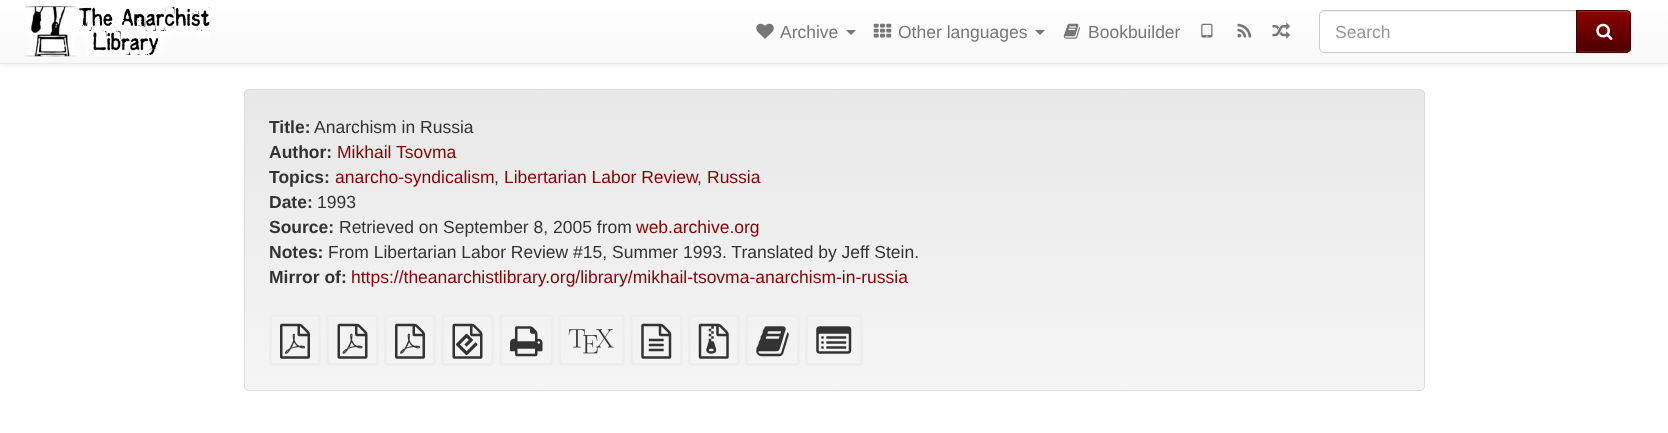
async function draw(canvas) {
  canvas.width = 1668;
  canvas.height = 433;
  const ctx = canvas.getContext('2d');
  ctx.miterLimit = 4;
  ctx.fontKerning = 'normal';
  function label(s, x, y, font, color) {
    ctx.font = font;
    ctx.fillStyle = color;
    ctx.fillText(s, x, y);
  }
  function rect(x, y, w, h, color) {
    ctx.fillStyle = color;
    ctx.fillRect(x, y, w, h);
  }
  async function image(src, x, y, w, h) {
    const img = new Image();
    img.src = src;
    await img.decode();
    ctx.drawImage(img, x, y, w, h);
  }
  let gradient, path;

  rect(0, 0, 1668, 433, '#fff');
  ctx.fillStyle = '#00000012';
  ctx.filter = 'blur(3px)';
  ctx.beginPath();
  ctx.rect(0, 1, 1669, 64);
  ctx.fill();
  ctx.filter = 'none';
  gradient = ctx.createLinearGradient(834, 0, 834, 63);
  gradient.addColorStop(0, '#fff');
  gradient.addColorStop(1, '#f8f8f8');
  ctx.fillStyle = gradient;
  ctx.fillRect(0, 0, 1668, 63);
  rect(0, 63, 1668, 1, '#e7e7e7');
  await image('assets/img1.png', 25, 6, 185, 51);
  await image('assets/img2.png', 756, 23, 18, 16);
  label('Archive', 780, 38, '17.5px Liberation Sans', '#777');
  path = new Path2D('M846 30H856L851 35Z');
  ctx.fill(path);
  await image('assets/img3.png', 873, 23, 19, 15);
  label('Other languages', 898, 38, '17.5px Liberation Sans', '#777');
  path = new Path2D('M1035 30H1045L1040 35Z');
  ctx.fill(path);
  await image('assets/img4.png', 1063, 23, 17, 16);
  label('Bookbuilder', 1088, 38, '17.5px Liberation Sans', '#777');
  await image('assets/img5.png', 1201, 23, 12, 15);
  await image('assets/img6.png', 1237, 23, 15, 15);
  await image('assets/img7.png', 1272, 22, 18, 17);
  ctx.fillStyle = '#fff';
  ctx.beginPath();
  ctx.roundRect(1319, 10, 259, 43, [5, 0, 0, 5]);
  ctx.fill();
  ctx.fillStyle = '#ececec';
  path = new Path2D('M1324 12H1576V11H1324C1322 11 1320 13 1320 15V16C1320 14 1322 12 1324 12Z');
  ctx.fill(path);
  ctx.beginPath();
  ctx.roundRect(1319.5, 10.5, 258, 42, [4.5, 0, 0, 4.5]);
  ctx.strokeStyle = '#ccc';
  ctx.stroke();
  label('Search', 1335, 38, '17.5px Liberation Sans', '#999');
  ctx.fillStyle = '#00000012';
  ctx.filter = 'blur(0.5px)';
  ctx.beginPath();
  ctx.roundRect(1576, 11, 55, 43, 5);
  ctx.fill();
  ctx.filter = 'none';
  ctx.fillStyle = '#8b0000';
  ctx.beginPath();
  ctx.roundRect(1576, 10, 55, 43, [0, 5, 5, 0]);
  ctx.fill();
  ctx.save();
  ctx.beginPath();
  ctx.roundRect(1576, 10, 55, 43, [0, 5, 5, 0]);
  ctx.clip();
  gradient = ctx.createLinearGradient(1604, 11, 1604, 51);
  gradient.addColorStop(0, '#8b0000');
  gradient.addColorStop(1, '#4e0000');
  ctx.fillStyle = gradient;
  ctx.fillRect(1577, 11, 54, 40);
  ctx.restore();
  ctx.fillStyle = '#ffffff26';
  path = new Path2D('M1578 12H1626C1628 12 1630 14 1630 16V15C1630 13 1628 11 1626 11H1578Z');
  ctx.fill(path);
  ctx.beginPath();
  ctx.roundRect(1576.5, 10.5, 54, 42, [0, 4.5, 4.5, 0]);
  ctx.strokeStyle = '#400';
  ctx.stroke();
  await image('assets/img8.png', 1596, 23, 17, 17);
  ctx.save();
  ctx.beginPath();
  ctx.roundRect(244, 89, 1181, 302, 5);
  ctx.clip();
  gradient = ctx.createLinearGradient(834, 90, 834, 390);
  gradient.addColorStop(0, '#e8e8e8');
  gradient.addColorStop(1, '#f5f5f5');
  ctx.fillStyle = gradient;
  ctx.fillRect(244, 90, 1181, 300);
  ctx.restore();
  ctx.beginPath();
  ctx.roundRect(244.5, 89.5, 1180, 301, 4.5);
  ctx.strokeStyle = '#dcdcdc';
  ctx.stroke();
  label('Title:', 269, 133, 'bold 17.5px Liberation Sans', '#333');
  label('Anarchism in Russia', 314, 133, '17.5px Liberation Sans', '#333');
  label('Author:', 269, 158, 'bold 17.5px Liberation Sans', '#333');
  label('Mikhail Tsovma', 337, 158, '17.5px Liberation Sans', '#8b0000');
  label('Topics:', 269, 183, 'bold 17.5px Liberation Sans', '#333');
  label('anarcho-syndicalism', 335, 183, '17.5px Liberation Sans', '#8b0000');
  label(',', 494, 183, '17.5px Liberation Sans', '#333');
  label('Libertarian Labor Review', 504, 183, '17.5px Liberation Sans', '#8b0000');
  label(',', 697, 183, '17.5px Liberation Sans', '#333');
  label('Russia', 707, 183, '17.5px Liberation Sans', '#8b0000');
  label('Date:', 269, 208, 'bold 17.5px Liberation Sans', '#333');
  label('1993', 317, 208, '17.5px Liberation Sans', '#333');
  label('Source:', 269, 233, 'bold 17.5px Liberation Sans', '#333');
  label('Retrieved on September 8, 2005 from', 339, 233, '17.5px Liberation Sans', '#333');
  label('web.archive.org', 636, 233, '17.5px Liberation Sans', '#8b0000');
  label('Notes:', 269, 258, 'bold 17.5px Liberation Sans', '#333');
  label('From Libertarian Labor Review #15, Summer 1993. Translated by Jeff Stein.', 328, 258, '17.5px Liberation Sans', '#333');
  label('Mirror of:', 269, 283, 'bold 17.5px Liberation Sans', '#333');
  label('https://theanarchistlibrary.org/library/mikhail-tsovma-anarchism-in-russia', 351, 283, '17.5px Liberation Sans', '#8b0000');
  ctx.beginPath();
  ctx.roundRect(270.5, 315.5, 49, 49, 2.5);
  ctx.strokeStyle = '#eee';
  ctx.lineWidth = 3;
  ctx.stroke();
  await image('assets/img9.png', 280, 323, 30, 36);
  ctx.beginPath();
  ctx.roundRect(327.5, 315.5, 50, 49, 2.5);
  ctx.stroke();
  await image('assets/img10.png', 337, 323, 31, 36);
  ctx.beginPath();
  ctx.roundRect(385.5, 315.5, 49, 49, 2.5);
  ctx.stroke();
  await image('assets/img9.png', 395, 323, 30, 36);
  ctx.beginPath();
  ctx.roundRect(442.5, 315.5, 50, 49, 2.5);
  ctx.stroke();
  await image('assets/img11.png', 452, 323, 31, 36);
  ctx.beginPath();
  ctx.roundRect(500.5, 315.5, 52, 49, 2.5);
  ctx.stroke();
  await image('assets/img12.png', 510, 326, 33, 31);
  ctx.beginPath();
  ctx.roundRect(559.5, 315.5, 64, 49, 2.5);
  ctx.stroke();
  await image('assets/img13.png', 568, 329, 46, 25);
  ctx.beginPath();
  ctx.roundRect(631.5, 315.5, 50, 49, 2.5);
  ctx.stroke();
  await image('assets/img14.png', 641, 323, 31, 36);
  ctx.beginPath();
  ctx.roundRect(689.5, 315.5, 49, 49, 2.5);
  ctx.stroke();
  await image('assets/img15.png', 698, 323, 31, 36);
  ctx.beginPath();
  ctx.roundRect(746.5, 315.5, 52, 49, 2.5);
  ctx.stroke();
  await image('assets/img16.png', 756, 326, 33, 31);
  ctx.beginPath();
  ctx.roundRect(806.5, 315.5, 55, 49, 2.5);
  ctx.stroke();
  await image('assets/img17.png', 816, 326, 36, 28);
}

draw(document.querySelector('canvas'));
